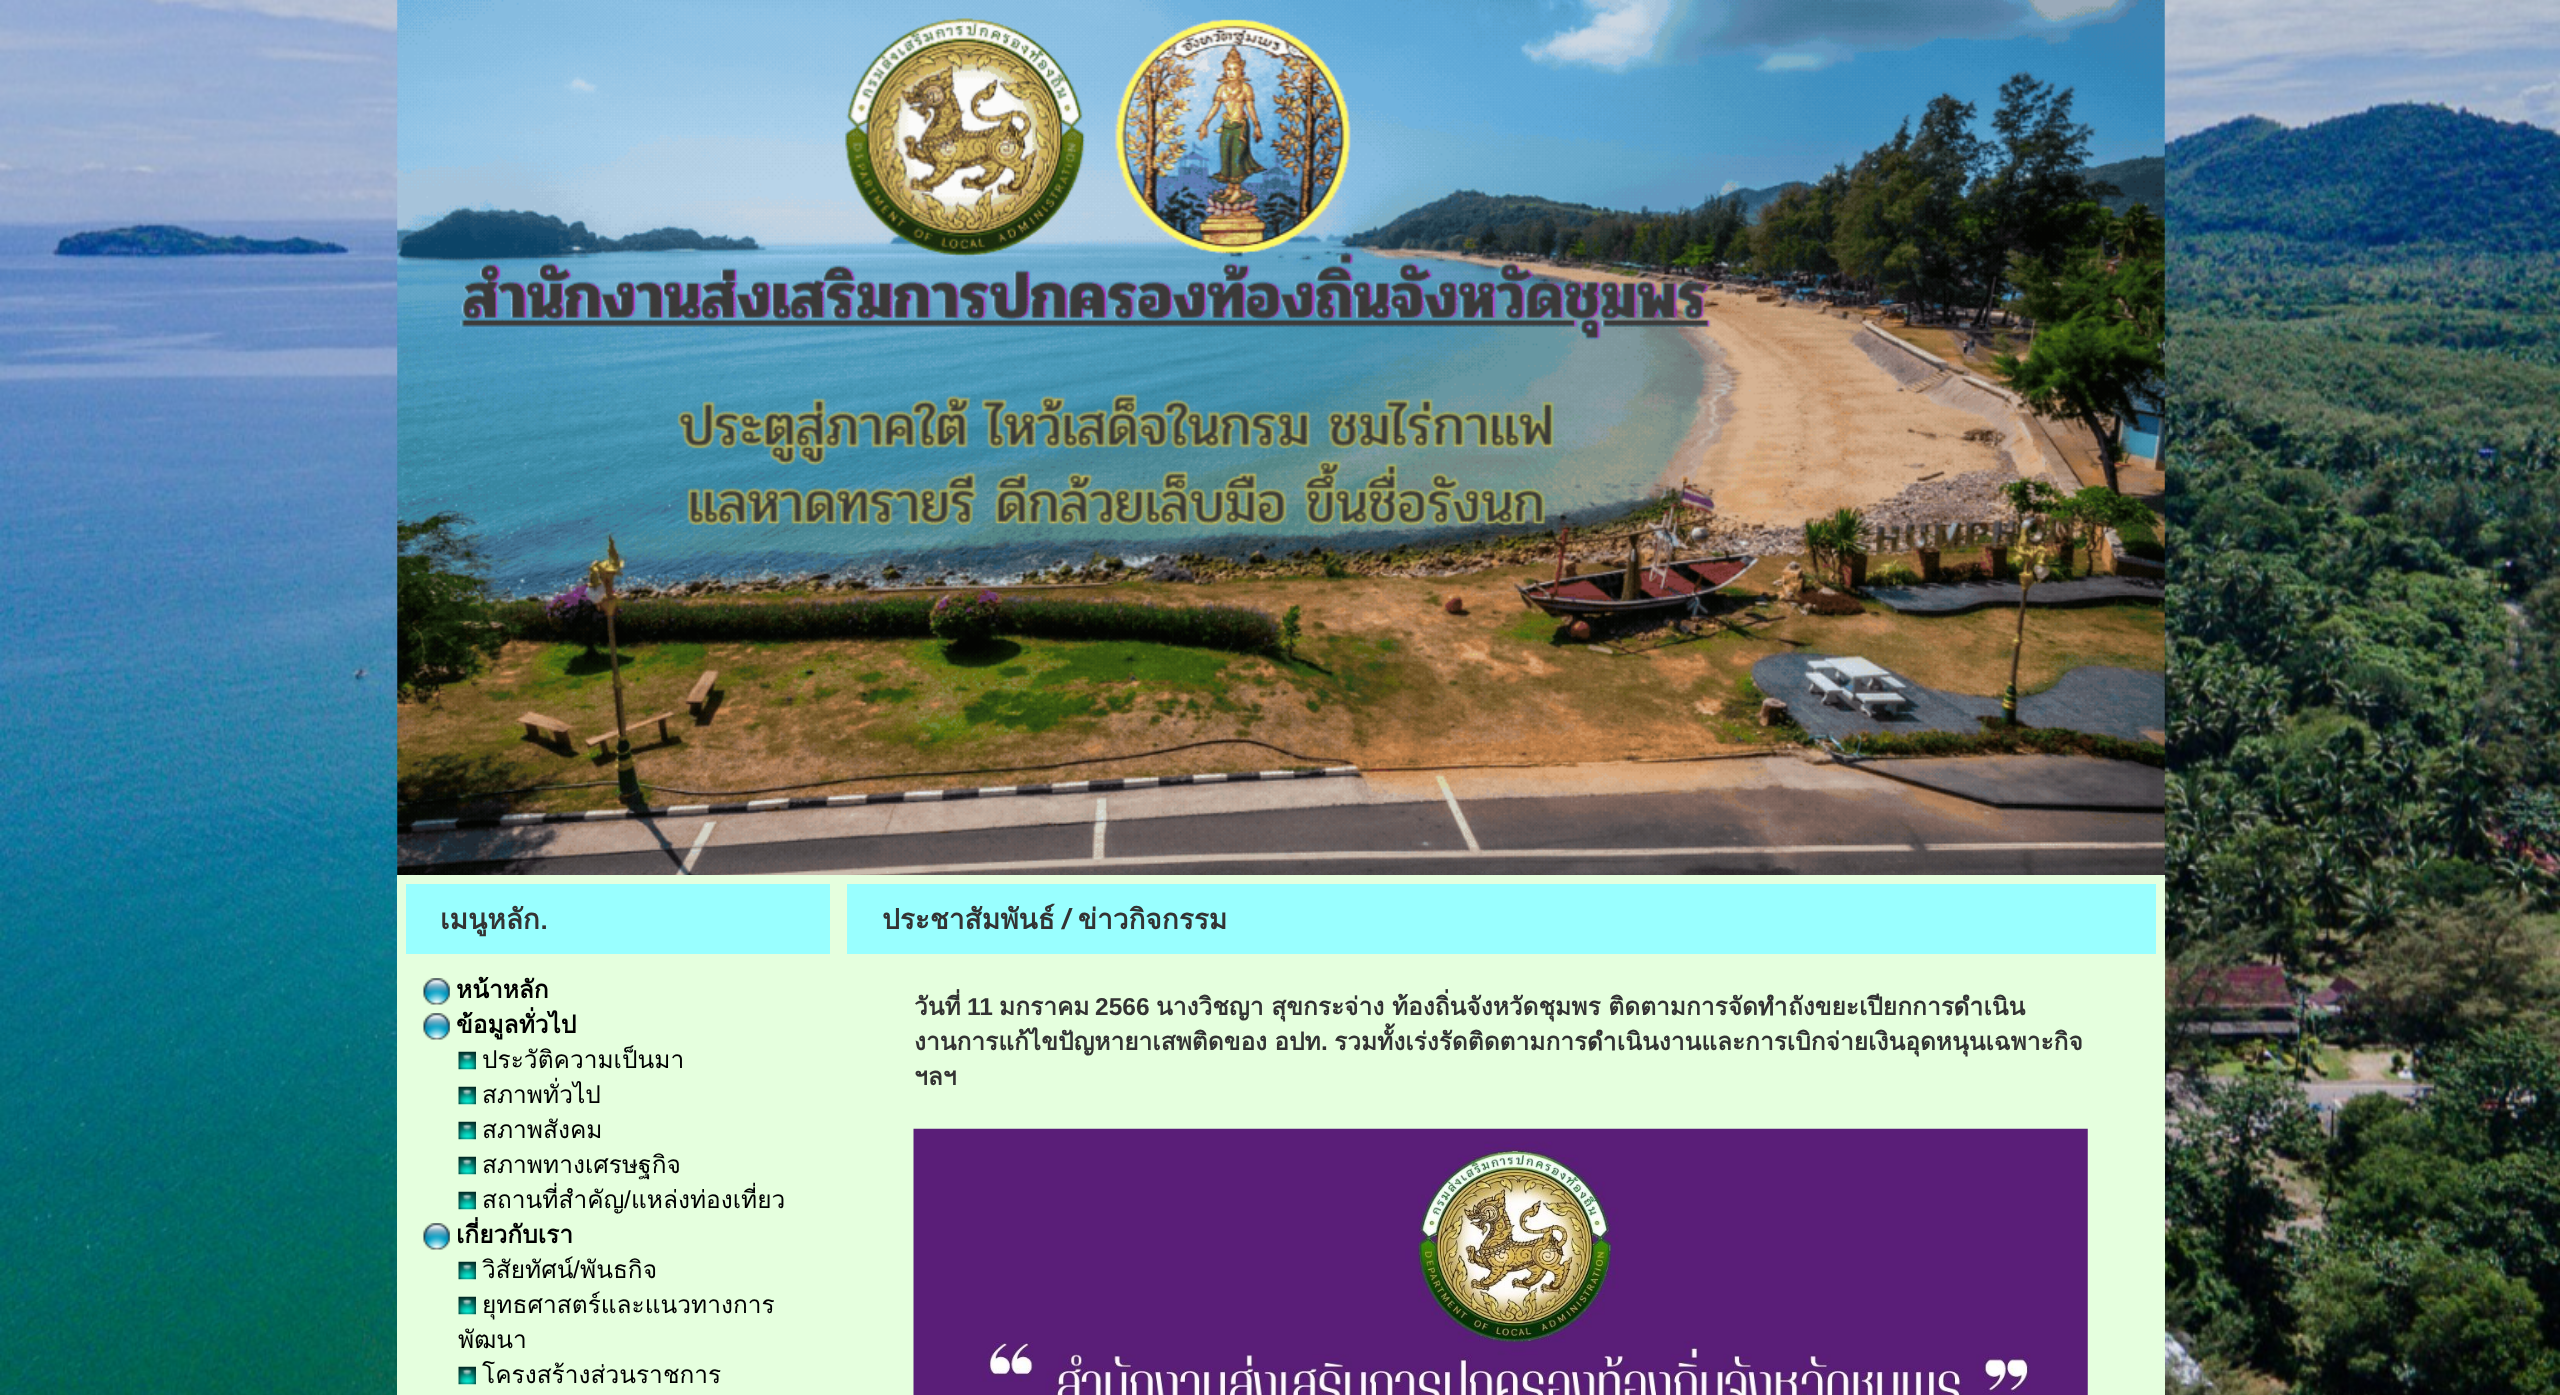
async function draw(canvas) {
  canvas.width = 2560;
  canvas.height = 1395;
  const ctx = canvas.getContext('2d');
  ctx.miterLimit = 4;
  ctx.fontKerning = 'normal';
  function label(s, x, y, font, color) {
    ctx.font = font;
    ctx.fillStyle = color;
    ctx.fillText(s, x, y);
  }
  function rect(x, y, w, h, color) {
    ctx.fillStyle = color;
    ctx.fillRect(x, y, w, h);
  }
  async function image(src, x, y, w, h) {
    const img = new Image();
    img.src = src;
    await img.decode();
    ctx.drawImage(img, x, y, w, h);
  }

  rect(0, 0, 2560, 1395, '#fff');
  await image('assets/img1.png', 0, 0, 2560, 1395);
  await image('assets/img2.png', 397, 0, 1768, 875);
  rect(397, 875, 1768, 520, '#e5ffde');
  rect(406, 884, 424, 70, '#9ff');
  label('เมนูหลัก.', 440, 929, 'bold 28px Loma', '#333');
  await image('assets/img3.png', 423, 978, 27, 27);
  label('หน้าหลัก', 456, 998, 'bold 24.5px Loma', '#000');
  await image('assets/img3.png', 423, 1013, 27, 27);
  label('ข้อมูลทั่วไป', 456, 1033, 'bold 24.5px Loma', '#000');
  await image('assets/img4.png', 458, 1051, 18, 19);
  label('ประวัติความเป็นมา', 482, 1068, '24.5px Loma', '#000');
  await image('assets/img4.png', 458, 1086, 18, 19);
  label('สภาพทั่วไป', 482, 1103, '24.5px Loma', '#000');
  await image('assets/img4.png', 458, 1121, 18, 19);
  label('สภาพสังคม', 482, 1138, '24.5px Loma', '#000');
  await image('assets/img4.png', 458, 1156, 18, 19);
  label('สภาพทางเศรษฐกิจ', 482, 1173, '24.5px Loma', '#000');
  await image('assets/img4.png', 458, 1191, 18, 19);
  label('สถานที่สำคัญ', 482, 1208, '24.5px Loma', '#000');
  label('/', 624, 1208, '24.5px Liberation Sans', '#000');
  label('แหล่งท่องเที่ยว', 631, 1208, '24.5px Loma', '#000');
  await image('assets/img3.png', 423, 1223, 27, 27);
  label('เกี่ยวกับเรา', 456, 1243, 'bold 24.5px Loma', '#000');
  await image('assets/img4.png', 458, 1261, 18, 19);
  label('วิสัยทัศน์', 482, 1278, '24.5px Loma', '#000');
  label('/', 573, 1278, '24.5px Liberation Sans', '#000');
  label('พันธกิจ', 580, 1278, '24.5px Loma', '#000');
  await image('assets/img4.png', 458, 1296, 18, 19);
  label('ยุทธศาสตร์และแนวทางการ', 482, 1313, '24.5px Loma', '#000');
  label('พัฒนา', 458, 1348, '24.5px Loma', '#000');
  await image('assets/img4.png', 458, 1366, 18, 19);
  label('โครงสร้างส่วนราชการ', 482, 1383, '24.5px Loma', '#000');
  rect(847, 884, 1309, 70, '#9ff');
  ctx.wordSpacing = '-2px';
  label('ประชาสัมพันธ์ / ข่าวกิจกรรม', 882, 929, 'bold 28px Loma', '#333');
  ctx.wordSpacing = '0px';
  label('วันที่', 914, 1015, 'bold 24.5px Loma', '#333');
  label('11', 967, 1015, 'bold 24.5px Liberation Sans', '#333');
  label('มกราคม', 999, 1015, 'bold 24.5px Loma', '#333');
  label('2566', 1095, 1015, 'bold 24.5px Liberation Sans', '#333');
  ctx.wordSpacing = '-0.5px';
  label('นางวิชญา สุขกระจ่าง ท้องถิ่นจังหวัดชุมพร ติดตามการจัดทำถังขยะเปียกการดำเนิน', 1156, 1015, 'bold 24.5px Loma', '#333');
  ctx.wordSpacing = '-1px';
  label('งานการแก้ไขปัญหายาเสพติดของ อปท', 914, 1050, 'bold 24.5px Loma', '#333');
  ctx.wordSpacing = '0px';
  label('.', 1321, 1050, 'bold 24.5px Liberation Sans', '#333');
  label('รวมทั้งเร่งรัดติดตามการดำเนินงานและการเบิกจ่ายเงินอุดหนุนเฉพาะกิจ', 1334, 1050, 'bold 24.5px Loma', '#333');
  label('ฯลฯ', 914, 1085, 'bold 24.5px Loma', '#333');
  await image('assets/img5.png', 913, 1128, 1175, 267);
}

draw(document.querySelector('canvas'));
